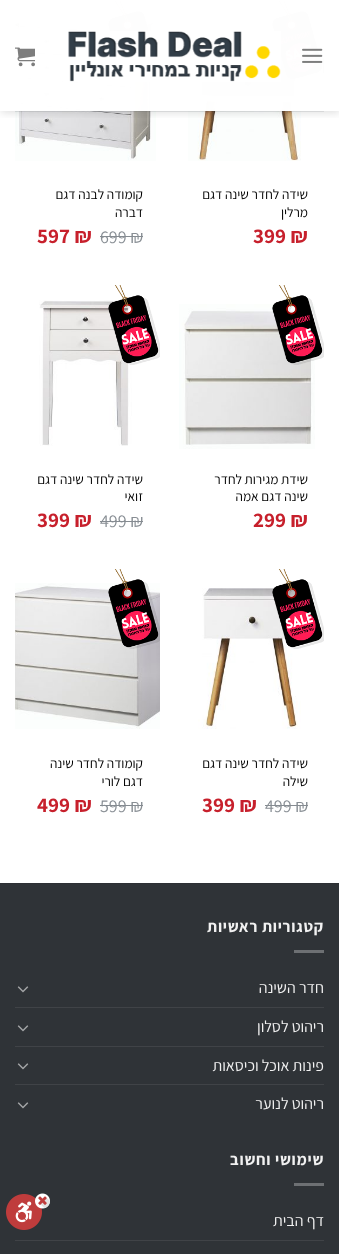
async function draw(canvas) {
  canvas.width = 339;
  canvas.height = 1254;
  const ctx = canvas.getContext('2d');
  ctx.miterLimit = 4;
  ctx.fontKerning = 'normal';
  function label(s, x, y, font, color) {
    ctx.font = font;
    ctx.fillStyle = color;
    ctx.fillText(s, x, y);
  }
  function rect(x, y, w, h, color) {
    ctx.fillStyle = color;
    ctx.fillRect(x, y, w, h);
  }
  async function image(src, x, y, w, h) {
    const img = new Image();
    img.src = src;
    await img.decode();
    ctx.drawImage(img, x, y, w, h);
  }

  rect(0, 0, 339, 1254, '#fff');
  await image('assets/img4.png', 188, 15, 113, 146);
  await image('assets/img5.png', 272, 1, 52, 80);
  await image('assets/img6.png', 15, 10, 141, 151);
  await image('assets/img7.png', 108, 1, 44, 30);
  ctx.save();
  ctx.beginPath();
  ctx.rect(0, 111, 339, 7);
  ctx.clip();
  ctx.fillStyle = '#00000026';
  ctx.filter = 'blur(5px)';
  ctx.beginPath();
  ctx.rect(1, 1, 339, 111);
  ctx.fill();
  ctx.filter = 'none';
  ctx.restore();
  rect(15, 1, 309, 110, '#ffffffe6');
  rect(19, 1, 304, 110, '#ffffffe6');
  await image('assets/img1.png', 302, 48, 21, 15);
  await image('assets/img2.png', 68, 31, 213, 51);
  await image('assets/img3.png', 15, 47, 20, 20);
  rect(15, 111, 309, 1, '#333e481a');
  ctx.direction = 'rtl';
  label('שידה לחדר שינה דגם', 308, 199, '13.5px Assistant', '#000');
  label('מרלין', 308, 217, '13.5px Assistant', '#000');
  ctx.direction = 'ltr';
  label('399 ₪', 253, 243, 'bold 21px Assistant', '#c7202c');
  ctx.direction = 'rtl';
  label('קומודה לבנה דגם', 143, 199, '13.5px Assistant', '#000');
  label('דברה', 143, 217, '13.5px Assistant', '#000');
  ctx.direction = 'ltr';
  label('699 ₪', 100, 243, '18px Assistant', '#888e94');
  rect(100, 236, 43, 1, '#858b91');
  label('597 ₪', 37, 243, 'bold 21px Assistant', '#c7202c');
  await image('assets/img8.png', 179, 304, 136, 145);
  await image('assets/img9.png', 272, 285, 52, 80);
  ctx.direction = 'rtl';
  label('שידת מגירות לחדר', 308, 484, '13.5px Assistant', '#000');
  label('שינה דגם אמה', 308, 501, '13.5px Assistant', '#000');
  ctx.direction = 'ltr';
  label('299 ₪', 253, 527, 'bold 21px Assistant', '#c7202c');
  await image('assets/img10.png', 39, 300, 93, 146);
  await image('assets/img11.png', 108, 285, 52, 80);
  ctx.direction = 'rtl';
  label('שידה לחדר שינה דגם', 143, 484, '13.5px Assistant', '#000');
  label('זואי', 143, 501, '13.5px Assistant', '#000');
  ctx.direction = 'ltr';
  label('499 ₪', 100, 527, '18px Assistant', '#888e94');
  rect(100, 521, 43, 1, '#858b91');
  label('399 ₪', 37, 527, 'bold 21px Assistant', '#c7202c');
  await image('assets/img12.png', 198, 588, 103, 141);
  await image('assets/img13.png', 272, 569, 52, 80);
  ctx.direction = 'rtl';
  label('שידה לחדר שינה דגם', 308, 768, '13.5px Assistant', '#000');
  label('שילה', 308, 786, '13.5px Assistant', '#000');
  ctx.direction = 'ltr';
  label('499 ₪', 265, 812, '18px Assistant', '#888e94');
  rect(265, 805, 43, 1, '#858b91');
  label('399 ₪', 202, 812, 'bold 21px Assistant', '#c7202c');
  await image('assets/img14.png', 15, 583, 145, 146);
  await image('assets/img15.png', 108, 569, 52, 80);
  ctx.direction = 'rtl';
  label('קומודה לחדר שינה', 143, 768, '13.5px Assistant', '#000');
  label('דגם לורי', 143, 786, '13.5px Assistant', '#000');
  ctx.direction = 'ltr';
  label('599 ₪', 100, 812, '18px Assistant', '#888e94');
  rect(100, 805, 43, 1, '#858b91');
  label('499 ₪', 37, 812, 'bold 21px Assistant', '#c7202c');
  rect(0, 884, 339, 370, '#2f3337');
  rect(0, 883, 339, 1, '#2d3034');
  ctx.letterSpacing = '0.75px';
  ctx.direction = 'rtl';
  label('קטגוריות ראשיות', 324, 932, 'bold 16px Assistant', '#f1f1f1');
  rect(294, 950, 30, 3, '#6d7073');
  ctx.letterSpacing = '0px';
  label('חדר השינה', 324, 993, '16px Assistant', '#f1f1f1');
  await image('assets/img16.png', 17, 986, 12, 7);
  rect(15, 1007, 309, 1, '#404347');
  label('ריהוט לסלון', 324, 1032, '16px Assistant', '#f1f1f1');
  await image('assets/img16.png', 17, 1025, 12, 7);
  rect(15, 1046, 309, 1, '#404347');
  label('פינות אוכל וכיסאות', 324, 1071, '16px Assistant', '#f1f1f1');
  await image('assets/img16.png', 17, 1063, 12, 7);
  rect(15, 1084, 309, 1, '#404347');
  label('ריהוט לנוער', 324, 1109, '16px Assistant', '#f1f1f1');
  await image('assets/img16.png', 17, 1102, 12, 7);
  ctx.letterSpacing = '0.75px';
  label('שימושי וחשוב', 324, 1165, 'bold 16px Assistant', '#f1f1f1');
  rect(294, 1183, 30, 3, '#6d7073');
  ctx.letterSpacing = '0px';
  label('דף הבית', 324, 1226, '16px Assistant', '#f1f1f1');
  rect(15, 1240, 309, 1, '#404347');
  await image('assets/img17.png', 6, 1193, 44, 37);
}

draw(document.querySelector('canvas'));
